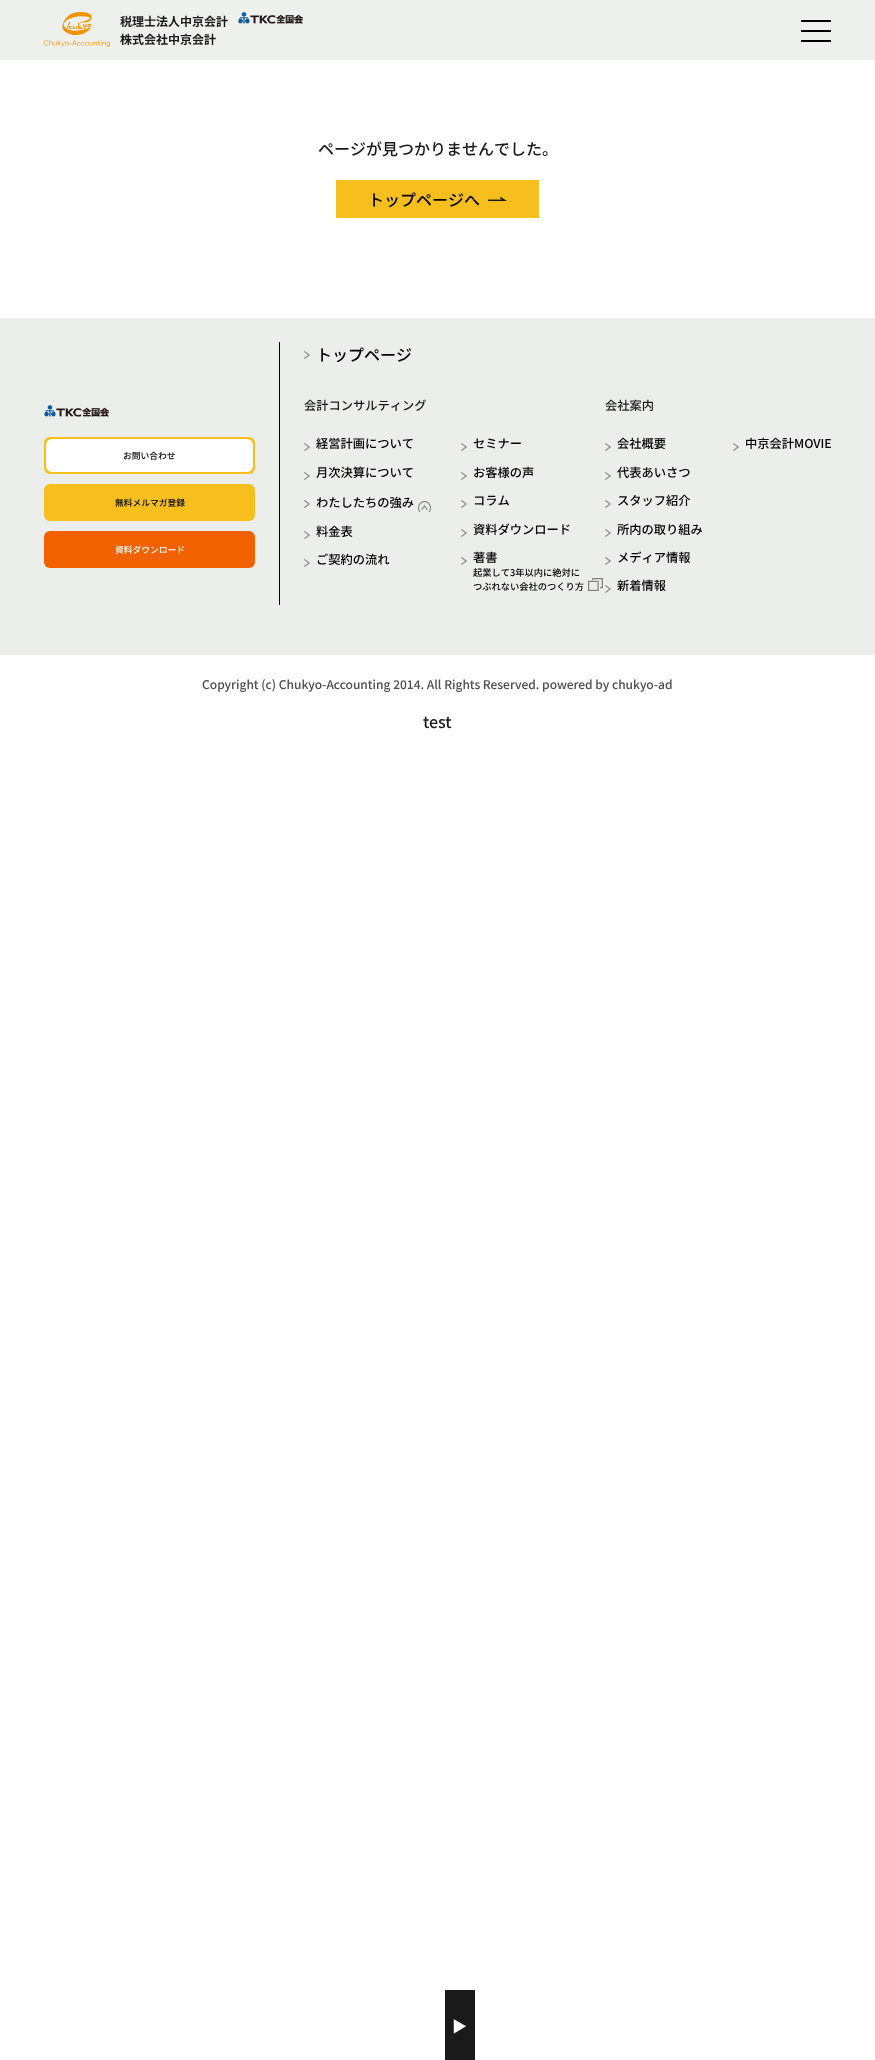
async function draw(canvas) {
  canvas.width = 875;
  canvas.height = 2060;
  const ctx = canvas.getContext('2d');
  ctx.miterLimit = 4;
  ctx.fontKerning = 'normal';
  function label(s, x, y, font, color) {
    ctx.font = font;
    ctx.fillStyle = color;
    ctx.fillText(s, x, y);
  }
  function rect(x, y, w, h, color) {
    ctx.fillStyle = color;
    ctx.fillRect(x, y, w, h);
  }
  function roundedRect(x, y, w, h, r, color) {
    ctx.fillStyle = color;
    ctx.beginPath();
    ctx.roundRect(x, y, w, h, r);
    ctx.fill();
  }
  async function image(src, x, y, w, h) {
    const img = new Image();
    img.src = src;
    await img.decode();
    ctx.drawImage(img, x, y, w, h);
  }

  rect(0, 0, 875, 2060, '#fff');
  rect(0, 0, 875, 60, '#eef0ee');
  await image('assets/img1.png', 44, 12, 66, 35);
  label('税理士法人中京会計', 120, 26, 'bold 12px Noto Sans JP', '#1a1a1a');
  label('株式会社中京会計', 120, 44, 'bold 12px Noto Sans JP', '#1a1a1a');
  await image('assets/img2.png', 238, 12, 65, 12);
  rect(801, 20, 30, 2, '#000');
  rect(801, 30, 30, 2, '#000');
  rect(801, 40, 30, 2, '#000');
  label('ページが見つかりませんでした。', 318, 155, '500 16px Noto Sans JP', '#1a1a1a');
  rect(336, 180, 203, 38, '#f6bf1e');
  await image('assets/img3.png', 488, 197, 19, 4);
  label('トップページへ', 368, 206, '500 16px Noto Sans JP', '#000');
  rect(0, 318, 875, 337, '#eceeec');
  rect(279, 342, 1, 263, '#000');
  await image('assets/img4.png', 44, 405, 65, 12);
  roundedRect(44, 437, 211, 37, 6, '#f6bf1e');
  roundedRect(46, 439, 207, 33, 6, '#fff');
  label('お問い合わせ', 123, 459, '500 8.75px Noto Sans JP', '#000');
  roundedRect(44, 484, 211, 37, 6, '#f6bf1e');
  label('無料メルマガ登録', 115, 506, '500 8.75px Noto Sans JP', '#000');
  roundedRect(44, 531, 211, 37, 6, '#f16100');
  label('資料ダウンロード', 115, 553, '500 8.75px Noto Sans JP', '#fff');
  await image('assets/img5.png', 304, 351, 6, 8);
  label('トップページ', 316, 361, '500 16px Noto Sans JP', '#000');
  label('会計コンサルティング', 304, 410, '500 12.25px Noto Sans JP', '#1a1a1a');
  await image('assets/img5.png', 304, 443, 6, 8);
  label('経営計画について', 316, 448, '500 12.25px Noto Sans JP', '#000');
  await image('assets/img5.png', 304, 472, 6, 8);
  label('月次決算について', 316, 477, '500 12.25px Noto Sans JP', '#000');
  await image('assets/img5.png', 304, 500, 6, 8);
  await image('assets/img6.png', 418, 501, 13, 11);
  label('わたしたちの強み', 316, 507, '500 12.25px Noto Sans JP', '#000');
  await image('assets/img5.png', 304, 531, 6, 8);
  label('料金表', 316, 536, '500 12.25px Noto Sans JP', '#000');
  await image('assets/img5.png', 304, 559, 6, 8);
  label('ご契約の流れ', 316, 564, '500 12.25px Noto Sans JP', '#000');
  await image('assets/img5.png', 461, 443, 6, 8);
  label('セミナー', 473, 448, '500 12.25px Noto Sans JP', '#000');
  await image('assets/img5.png', 461, 472, 6, 8);
  label('お客様の声', 473, 477, '500 12.25px Noto Sans JP', '#000');
  await image('assets/img5.png', 461, 500, 6, 8);
  label('コラム', 473, 505, '500 12.25px Noto Sans JP', '#000');
  await image('assets/img5.png', 461, 529, 6, 8);
  label('資料ダウンロード', 473, 534, '500 12.25px Noto Sans JP', '#000');
  await image('assets/img5.png', 461, 557, 6, 8);
  label('著書', 473, 562, '500 12.25px Noto Sans JP', '#000');
  await image('assets/img7.png', 588, 578, 15, 13);
  label('起業して3年以内に絶対に', 473, 576, '500 9.25px Noto Sans JP', '#000');
  label('つぶれない会社のつくり方', 473, 590, '500 9.25px Noto Sans JP', '#000');
  label('会社案内', 605, 410, '500 12.25px Noto Sans JP', '#1a1a1a');
  await image('assets/img5.png', 605, 443, 6, 8);
  label('会社概要', 617, 448, '500 12.25px Noto Sans JP', '#000');
  await image('assets/img5.png', 605, 472, 6, 8);
  label('代表あいさつ', 617, 477, '500 12.25px Noto Sans JP', '#000');
  await image('assets/img5.png', 605, 500, 6, 8);
  label('スタッフ紹介', 617, 505, '500 12.25px Noto Sans JP', '#000');
  await image('assets/img5.png', 605, 529, 6, 8);
  label('所内の取り組み', 617, 534, '500 12.25px Noto Sans JP', '#000');
  await image('assets/img5.png', 605, 557, 6, 8);
  label('メディア情報', 617, 562, '500 12.25px Noto Sans JP', '#000');
  await image('assets/img5.png', 605, 585, 6, 8);
  label('新着情報', 617, 590, '500 12.25px Noto Sans JP', '#000');
  await image('assets/img5.png', 733, 443, 6, 8);
  label('中京会計MOVIE', 745, 448, '500 12.25px Noto Sans JP', '#000');
  label('Copyright (c) Chukyo-Accounting 2014. All Rights Reserved. powered by chukyo-ad', 202, 689, '500 12px Noto Sans JP', '#4d4d4d');
  rect(445, 1990, 30, 70, '#1a1a1a');
  label('▶︎', 452, 2032, 'bold 15px Noto Sans JP', '#fff');
  label('test', 423, 728, '500 16px Noto Sans JP', '#1a1a1a');
}

draw(document.querySelector('canvas'));
